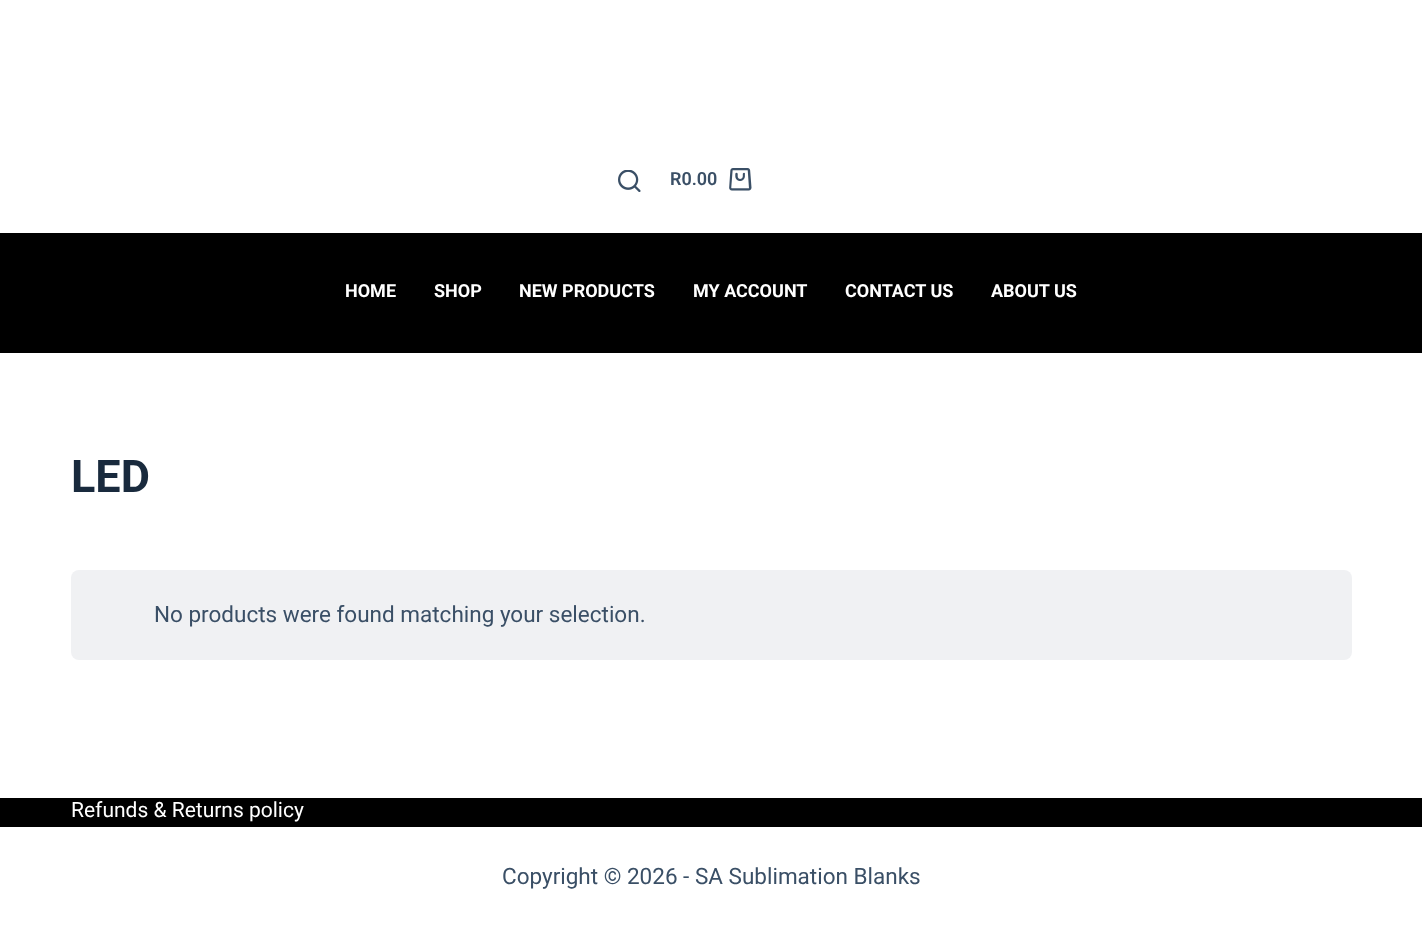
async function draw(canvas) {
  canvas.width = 1422;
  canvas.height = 929;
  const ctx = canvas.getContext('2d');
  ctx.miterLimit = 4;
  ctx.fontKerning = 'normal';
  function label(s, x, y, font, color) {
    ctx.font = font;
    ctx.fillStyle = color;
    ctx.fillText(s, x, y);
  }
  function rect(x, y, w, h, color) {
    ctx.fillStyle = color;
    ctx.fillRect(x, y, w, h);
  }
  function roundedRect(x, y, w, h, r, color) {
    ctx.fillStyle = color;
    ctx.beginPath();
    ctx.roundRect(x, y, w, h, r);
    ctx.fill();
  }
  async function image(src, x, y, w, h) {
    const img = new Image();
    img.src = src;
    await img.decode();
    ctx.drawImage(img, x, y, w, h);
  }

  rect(0, 0, 1422, 929, '#fff');
  await image('assets/img1.png', 618, 170, 23, 22);
  label('R0.00', 670, 185, '600 18px Roboto', '#3a4f66');
  await image('assets/img2.png', 729, 168, 23, 23);
  rect(0, 233, 1422, 120, '#000');
  label('HOME', 345, 297, 'bold 18px Roboto', '#fff');
  label('SHOP', 434, 297, 'bold 18px Roboto', '#fff');
  label('NEW PRODUCTS', 519, 297, 'bold 18px Roboto', '#fff');
  label('MY ACCOUNT', 693, 297, 'bold 18px Roboto', '#fff');
  label('CONTACT US', 845, 297, 'bold 18px Roboto', '#fff');
  label('ABOUT US', 991, 297, 'bold 18px Roboto', '#fff');
  label('LED', 71, 492, 'bold 45px Roboto', '#192a3d');
  roundedRect(71, 570, 1281, 90, 8, '#f0f1f3');
  label('No products were found matching your selection.', 154, 622, '22.5px Roboto', '#3a4f66');
  rect(0, 798, 1422, 29, '#000');
  label('Refunds & Returns policy', 71, 817, '21px Roboto', '#fff');
  label('Copyright © 2026 - SA Sublimation Blanks', 502, 884, '22.5px Roboto', '#3a4f66');
}

draw(document.querySelector('canvas'));
